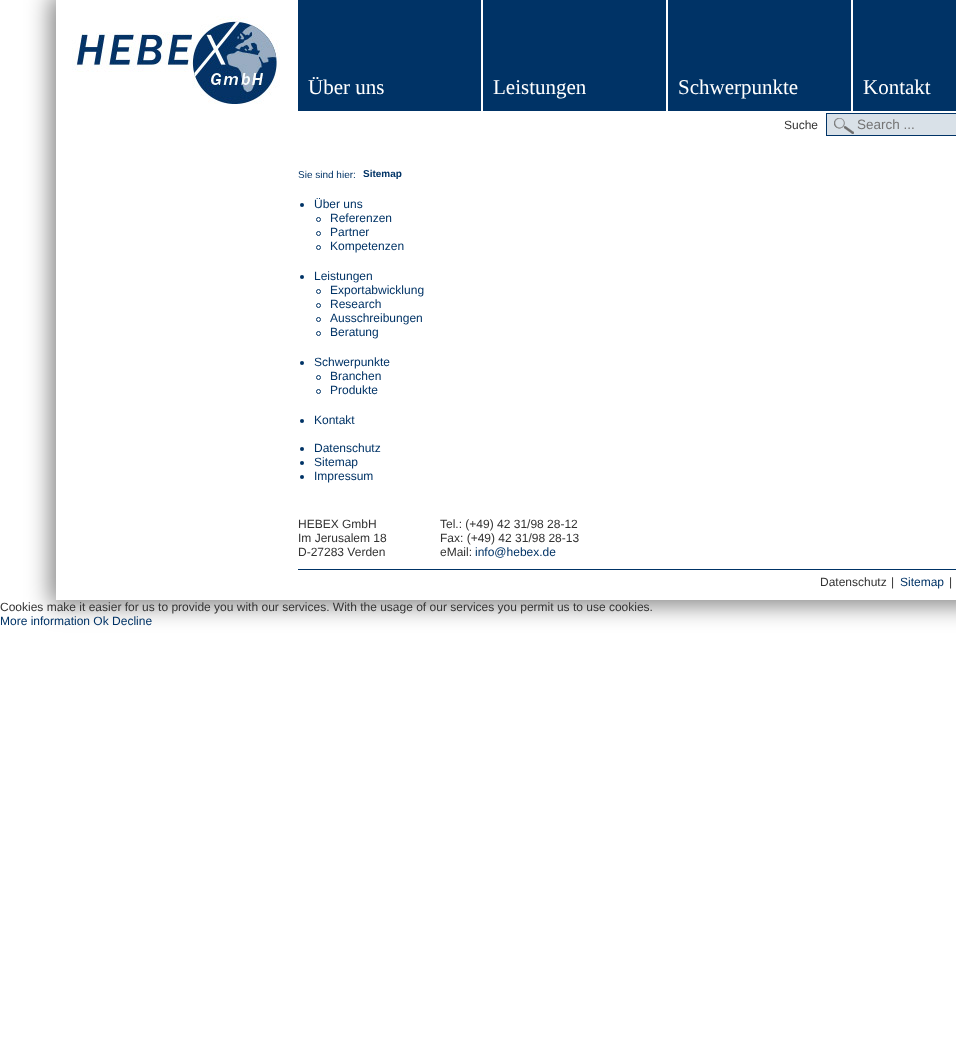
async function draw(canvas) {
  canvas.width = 956;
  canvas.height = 1046;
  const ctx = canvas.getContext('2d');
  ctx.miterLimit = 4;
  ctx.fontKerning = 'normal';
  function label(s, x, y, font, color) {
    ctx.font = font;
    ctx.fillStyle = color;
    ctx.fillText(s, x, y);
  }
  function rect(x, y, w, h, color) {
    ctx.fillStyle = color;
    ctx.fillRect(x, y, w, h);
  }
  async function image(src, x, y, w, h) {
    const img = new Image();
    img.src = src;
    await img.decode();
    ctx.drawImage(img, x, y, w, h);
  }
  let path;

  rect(0, 0, 956, 1046, '#fff');
  ctx.save();
  path = new Path2D('M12 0H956V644H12ZM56 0H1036V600H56Z');
  ctx.clip(path, 'evenodd');
  ctx.fillStyle = '#00000080';
  ctx.filter = 'blur(12.5px)';
  ctx.beginPath();
  ctx.rect(51, -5, 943, 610);
  ctx.fill();
  ctx.filter = 'none';
  ctx.restore();
  await image('assets/img1.png', 72, 16, 208, 88);
  rect(298, 0, 183, 111, '#036');
  label('Über uns', 308, 94, '21px Liberation Serif', '#fff');
  rect(483, 0, 183, 111, '#036');
  label('Leistungen', 493, 94, '21px Liberation Serif', '#fff');
  rect(668, 0, 183, 111, '#036');
  label('Schwerpunkte', 678, 94, '21px Liberation Serif', '#fff');
  rect(853, 0, 103, 111, '#036');
  label('Kontakt', 863, 94, '21px Liberation Serif', '#fff');
  label('Suche', 784, 129, '12px Liberation Sans', '#333');
  rect(827, 114, 129, 21, '#d9e1e8');
  await image('assets/img2.png', 834, 118, 20, 16);
  ctx.strokeStyle = '#036';
  ctx.strokeRect(826.5, 113.5, 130, 22);
  label('Search ...', 857, 129, '13.5px Liberation Sans', '#757575');
  label('Sie sind hier:', 298, 178, '10px Liberation Sans', '#036');
  label('Sitemap', 363, 177, 'bold 10px Liberation Sans', '#036');
  ctx.beginPath();
  ctx.arc(302, 205, 2, 0, 2 * Math.PI);
  ctx.fill();
  label('Über uns', 314, 208, '12px Liberation Sans', '#036');
  ctx.beginPath();
  ctx.arc(318.5, 219.5, 2, 0, 2 * Math.PI);
  ctx.stroke();
  label('Referenzen', 330, 222, '12px Liberation Sans', '#036');
  ctx.beginPath();
  ctx.arc(318.5, 233.5, 2, 0, 2 * Math.PI);
  ctx.stroke();
  label('Partner', 330, 236, '12px Liberation Sans', '#036');
  ctx.beginPath();
  ctx.arc(318.5, 247.5, 2, 0, 2 * Math.PI);
  ctx.stroke();
  label('Kompetenzen', 330, 250, '12px Liberation Sans', '#036');
  ctx.beginPath();
  ctx.arc(302, 277, 2, 0, 2 * Math.PI);
  ctx.fill();
  label('Leistungen', 314, 280, '12px Liberation Sans', '#036');
  ctx.beginPath();
  ctx.arc(318.5, 291.5, 2, 0, 2 * Math.PI);
  ctx.stroke();
  label('Exportabwicklung', 330, 294, '12px Liberation Sans', '#036');
  ctx.beginPath();
  ctx.arc(318.5, 305.5, 2, 0, 2 * Math.PI);
  ctx.stroke();
  label('Research', 330, 308, '12px Liberation Sans', '#036');
  ctx.beginPath();
  ctx.arc(318.5, 319.5, 2, 0, 2 * Math.PI);
  ctx.stroke();
  label('Ausschreibungen', 330, 322, '12px Liberation Sans', '#036');
  ctx.beginPath();
  ctx.arc(318.5, 333.5, 2, 0, 2 * Math.PI);
  ctx.stroke();
  label('Beratung', 330, 336, '12px Liberation Sans', '#036');
  ctx.beginPath();
  ctx.arc(302, 363, 2, 0, 2 * Math.PI);
  ctx.fill();
  label('Schwerpunkte', 314, 366, '12px Liberation Sans', '#036');
  ctx.beginPath();
  ctx.arc(318.5, 377.5, 2, 0, 2 * Math.PI);
  ctx.stroke();
  label('Branchen', 330, 380, '12px Liberation Sans', '#036');
  ctx.beginPath();
  ctx.arc(318.5, 391.5, 2, 0, 2 * Math.PI);
  ctx.stroke();
  label('Produkte', 330, 394, '12px Liberation Sans', '#036');
  ctx.beginPath();
  ctx.arc(302, 421, 2, 0, 2 * Math.PI);
  ctx.fill();
  label('Kontakt', 314, 424, '12px Liberation Sans', '#036');
  ctx.beginPath();
  ctx.arc(302, 449, 2, 0, 2 * Math.PI);
  ctx.fill();
  label('Datenschutz', 314, 452, '12px Liberation Sans', '#036');
  ctx.beginPath();
  ctx.arc(302, 463, 2, 0, 2 * Math.PI);
  ctx.fill();
  label('Sitemap', 314, 466, '12px Liberation Sans', '#036');
  ctx.beginPath();
  ctx.arc(302, 477, 2, 0, 2 * Math.PI);
  ctx.fill();
  label('Impressum', 314, 480, '12px Liberation Sans', '#036');
  label('HEBEX GmbH', 298, 528, '12px Liberation Sans', '#333');
  label('Im Jerusalem 18', 298, 542, '12px Liberation Sans', '#333');
  label('D-27283 Verden', 298, 556, '12px Liberation Sans', '#333');
  label('Tel.: (+49) 42 31/98 28-12', 440, 528, '12px Liberation Sans', '#333');
  label('Fax: (+49) 42 31/98 28-13', 440, 542, '12px Liberation Sans', '#333');
  label('eMail:', 440, 556, '12px Liberation Sans', '#333');
  label('info@hebex.de', 475, 556, '12px Liberation Sans', '#036');
  rect(298, 569, 658, 1, '#036');
  label('Datenschutz', 820, 586, '12px Liberation Sans', '#333');
  label('|', 891, 586, '12px Liberation Sans', '#333');
  label('Sitemap', 900, 586, '12px Liberation Sans', '#036');
  label('|', 949, 586, '12px Liberation Sans', '#333');
  label('Cookies make it easier for us to provide you with our services. With the usage of our services you permit us to use cookies.', 0, 611, '12px Liberation Sans', '#333');
  label('More information Ok Decline', 0, 625, '12px Liberation Sans', '#036');
}

draw(document.querySelector('canvas'));
